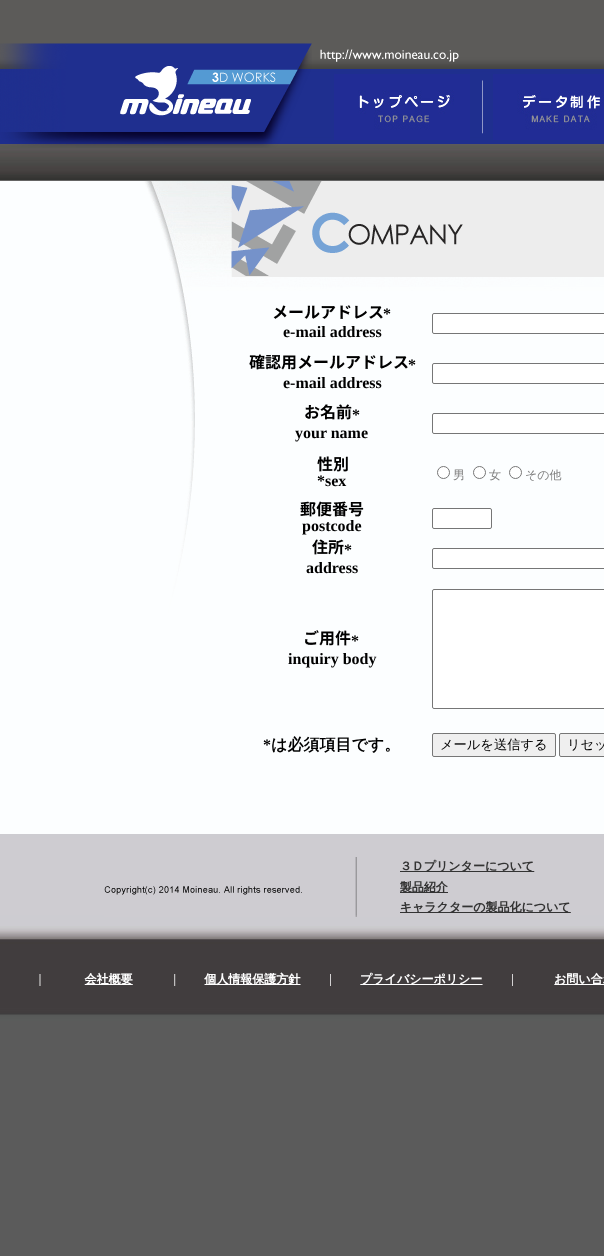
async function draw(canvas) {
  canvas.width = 604;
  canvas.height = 1256;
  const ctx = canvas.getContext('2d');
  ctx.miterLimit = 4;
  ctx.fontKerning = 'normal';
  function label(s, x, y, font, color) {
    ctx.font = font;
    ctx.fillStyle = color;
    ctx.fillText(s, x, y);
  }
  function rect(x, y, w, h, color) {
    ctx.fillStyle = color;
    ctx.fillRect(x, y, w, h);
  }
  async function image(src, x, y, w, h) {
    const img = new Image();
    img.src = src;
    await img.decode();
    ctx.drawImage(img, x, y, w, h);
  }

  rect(0, 0, 604, 1256, '#fff');
  await image('assets/img1.png', 0, 0, 604, 1256);
  await image('assets/img2.png', 0, 43, 312, 105);
  await image('assets/img3.png', 120, 66, 131, 50);
  await image('assets/img4.png', 320, 49, 139, 13);
  await image('assets/img5.png', 334, 74, 136, 66);
  await image('assets/img6.png', 493, 74, 111, 66);
  await image('assets/img7.png', 482, 80, 1, 54);
  await image('assets/img8.png', 0, 181, 604, 653);
  await image('assets/img9.png', 231, 181, 373, 96);
  await image('assets/img10.png', 273, 305, 110, 14);
  label('*', 383, 319, 'bold 16px Liberation Serif', '#000');
  label('e-mail address', 283, 337, 'bold 16px Liberation Serif', '#000');
  ctx.fillStyle = '#fff';
  ctx.beginPath();
  ctx.roundRect(432.5, 313.5, 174, 20, 1.5);
  ctx.fill();
  ctx.strokeStyle = '#767676';
  ctx.stroke();
  await image('assets/img11.png', 249, 354, 159, 16);
  label('*', 408, 370, 'bold 16px Liberation Serif', '#000');
  label('e-mail address', 283, 388, 'bold 16px Liberation Serif', '#000');
  ctx.fillStyle = '#fff';
  ctx.beginPath();
  ctx.roundRect(432.5, 363.5, 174, 20, 1.5);
  ctx.fill();
  ctx.stroke();
  await image('assets/img12.png', 305, 404, 47, 16);
  label('*', 352, 420, 'bold 16px Liberation Serif', '#000');
  label('your name', 295, 438, 'bold 16px Liberation Serif', '#000');
  ctx.fillStyle = '#fff';
  ctx.beginPath();
  ctx.roundRect(432.5, 413.5, 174, 20, 1.5);
  ctx.fill();
  ctx.stroke();
  await image('assets/img13.png', 317, 456, 31, 16);
  label('*sex', 317, 486, 'bold 16px Liberation Serif', '#000');
  ctx.fillStyle = '#fff';
  ctx.beginPath();
  ctx.arc(443.5, 472.5, 6, 0, 2 * Math.PI);
  ctx.fill();
  ctx.stroke();
  label('男', 453, 479, '500 12px WenQuanYi Zen Hei', '#808080');
  ctx.fillStyle = '#fff';
  ctx.beginPath();
  ctx.arc(479.5, 472.5, 6, 0, 2 * Math.PI);
  ctx.fill();
  ctx.stroke();
  label('女', 489, 479, '500 12px WenQuanYi Zen Hei', '#808080');
  ctx.fillStyle = '#fff';
  ctx.beginPath();
  ctx.arc(515.5, 472.5, 6, 0, 2 * Math.PI);
  ctx.fill();
  ctx.stroke();
  label('その他', 525, 479, '500 12px WenQuanYi Zen Hei', '#808080');
  await image('assets/img14.png', 300, 501, 64, 16);
  label('postcode', 302, 531, 'bold 16px Liberation Serif', '#000');
  ctx.fillStyle = '#fff';
  ctx.beginPath();
  ctx.roundRect(432.5, 508.5, 59, 20, 1.5);
  ctx.fill();
  ctx.stroke();
  await image('assets/img15.png', 312, 539, 32, 16);
  label('*', 344, 555, 'bold 16px Liberation Serif', '#000');
  label('address', 306, 573, 'bold 16px Liberation Serif', '#000');
  ctx.fillStyle = '#fff';
  ctx.beginPath();
  ctx.roundRect(432.5, 548.5, 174, 20, 1.5);
  ctx.fill();
  ctx.stroke();
  await image('assets/img16.png', 305, 630, 46, 16);
  label('*', 351, 646, 'bold 16px Liberation Serif', '#000');
  label('inquiry body', 288, 664, 'bold 16px Liberation Serif', '#000');
  ctx.fillStyle = '#fff';
  ctx.beginPath();
  ctx.roundRect(432.5, 589.5, 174, 119, 1.5);
  ctx.fill();
  ctx.stroke();
  label('*', 263, 750, 'bold 16px Liberation Serif', '#000');
  label('は必須項目です。', 271, 750, 'bold 16px WenQuanYi Zen Hei', '#000');
  ctx.fillStyle = '#efefef';
  ctx.beginPath();
  ctx.roundRect(432.5, 733.5, 123, 23, 1.5);
  ctx.fill();
  ctx.stroke();
  label('メールを送信する', 440, 749, '500 13.25px WenQuanYi Zen Hei', '#000');
  ctx.fillStyle = '#efefef';
  ctx.beginPath();
  ctx.roundRect(559.5, 733.5, 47, 23, 1.5);
  ctx.fill();
  ctx.stroke();
  label('リセッ', 567, 749, '500 13.25px WenQuanYi Zen Hei', '#000');
  await image('assets/img17.png', 104, 857, 467, 60);
  await image('assets/img18.png', 39, 972, 565, 14);
}

draw(document.querySelector('canvas'));
